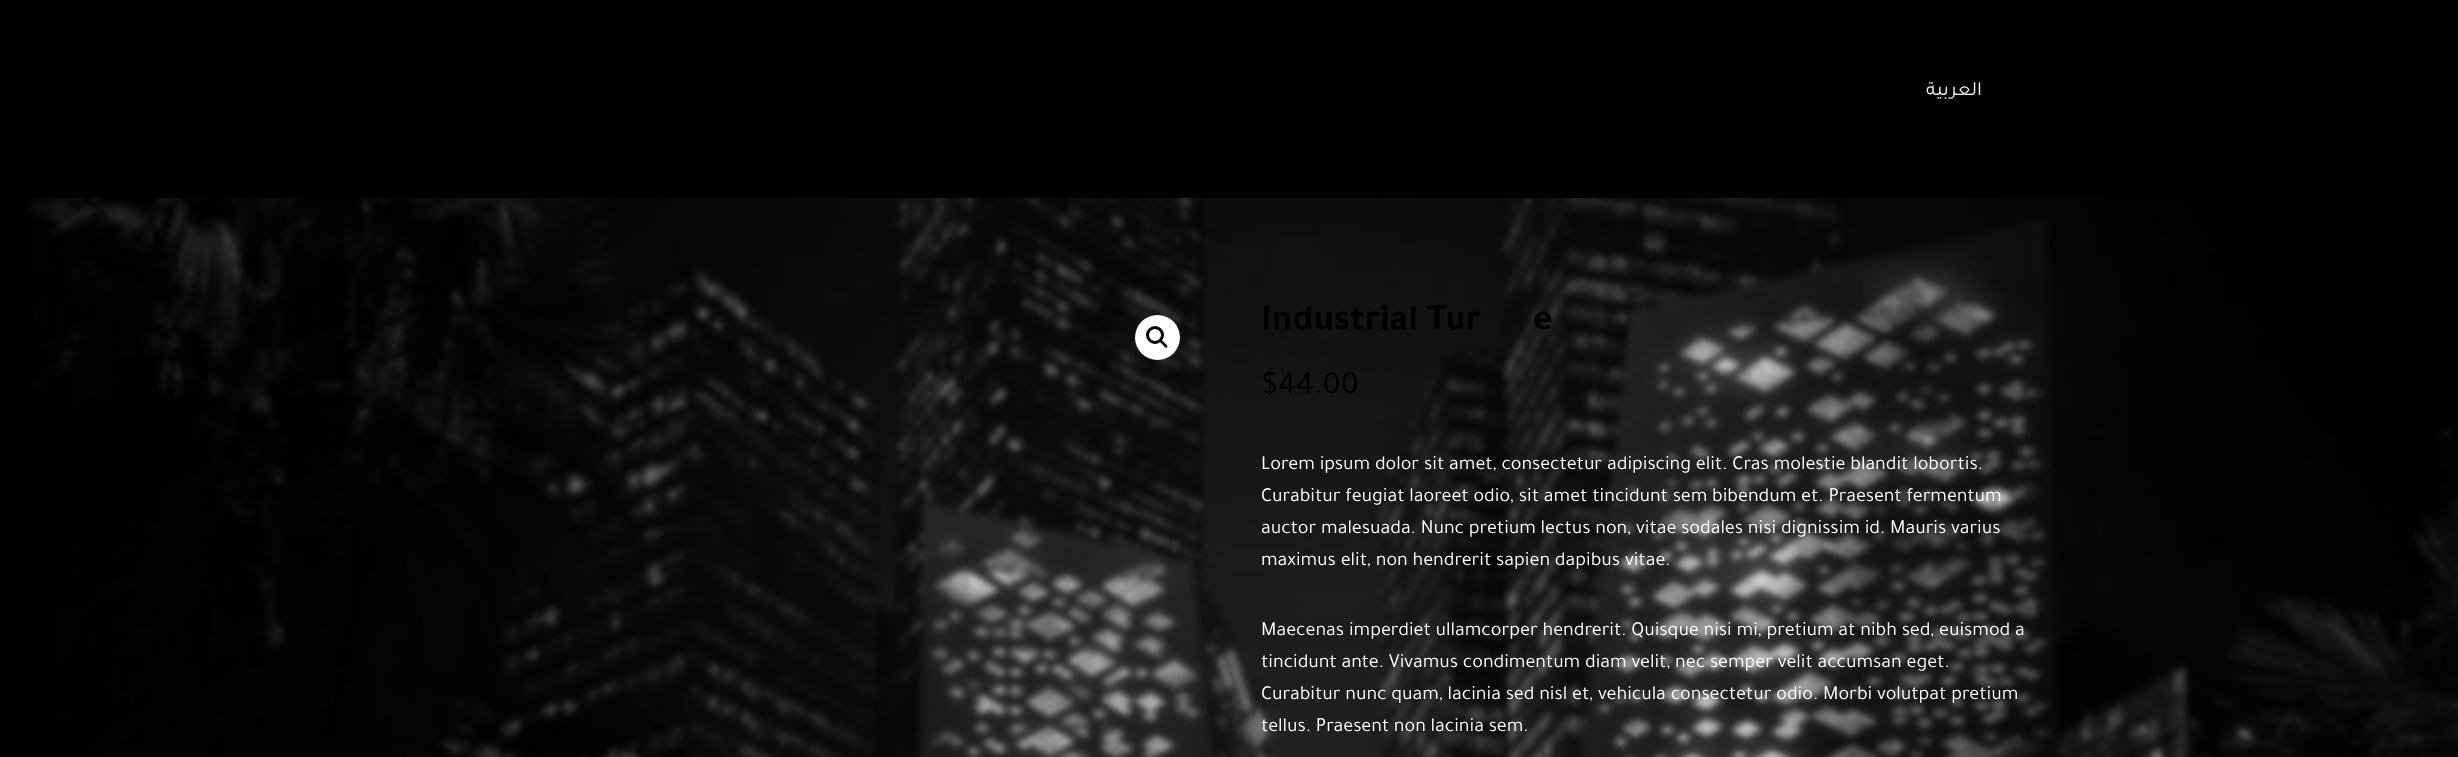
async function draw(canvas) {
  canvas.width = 2458;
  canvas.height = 757;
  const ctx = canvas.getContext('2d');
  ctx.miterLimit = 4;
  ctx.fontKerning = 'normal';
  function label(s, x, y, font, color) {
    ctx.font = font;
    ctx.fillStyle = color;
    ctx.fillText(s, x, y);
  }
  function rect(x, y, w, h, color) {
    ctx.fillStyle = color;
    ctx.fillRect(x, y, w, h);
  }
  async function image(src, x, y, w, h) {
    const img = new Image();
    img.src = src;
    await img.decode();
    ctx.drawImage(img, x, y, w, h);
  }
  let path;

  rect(0, 0, 2458, 757, '#fff');
  await image('assets/img1.png', 0, 198, 2458, 559);
  rect(0, 0, 2458, 198, '#000');
  ctx.direction = 'rtl';
  label('العربية', 1982, 95, '20px Tajawal', '#f4f4f4');
  ctx.fillStyle = '#fff';
  ctx.beginPath();
  ctx.arc(1157.5, 337.5, 22.5, 0, 2 * Math.PI);
  ctx.fill();
  ctx.beginPath();
  ctx.arc(1155, 335, 7.5, 0, 2 * Math.PI);
  ctx.strokeStyle = '#000';
  ctx.lineWidth = 3;
  ctx.stroke();
  ctx.fillStyle = '#000';
  path = new Path2D('M1160 340C1161.5 339 1163.5 342 1164.5 343C1165.5 343.5 1168.5 346 1167 347.5C1165.5 348.5 1163.5 345.5 1162.5 344.5C1162 344 1158.5 341.5 1160 340Z');
  ctx.fill(path);
  ctx.direction = 'ltr';
  label('Industrial Tur', 1261, 329, 'bold 37.5px Tajawal', '#000001');
  label('e', 1533, 329, 'bold 37.5px Tajawal', '#000001');
  label('$44.00', 1261, 393, '32.5px Tajawal', '#000001');
  label('Lorem ipsum dolor sit amet, consectetur adipiscing elit. Cras molestie blandit lobortis.', 1261, 469, '20px Tajawal', '#fff');
  label('Curabitur feugiat laoreet odio, sit amet tincidunt sem bibendum et. Praesent fermentum', 1261, 501, '20px Tajawal', '#fff');
  label('auctor malesuada. Nunc pretium lectus non, vitae sodales nisi dignissim id. Mauris varius', 1261, 533, '20px Tajawal', '#fff');
  label('maximus elit, non hendrerit sapien dapibus vitae.', 1261, 565, '20px Tajawal', '#fff');
  label('Maecenas imperdiet ullamcorper hendrerit. Quisque nisi mi, pretium at nibh sed, euismod a', 1261, 635, '20px Tajawal', '#fff');
  label('tincidunt ante. Vivamus condimentum diam velit, nec semper velit accumsan eget.', 1261, 667, '20px Tajawal', '#fff');
  label('Curabitur nunc quam, lacinia sed nisl et, vehicula consectetur odio. Morbi volutpat pretium', 1261, 699, '20px Tajawal', '#fff');
  label('tellus. Praesent non lacinia sem.', 1261, 731, '20px Tajawal', '#fff');
}

draw(document.querySelector('canvas'));
